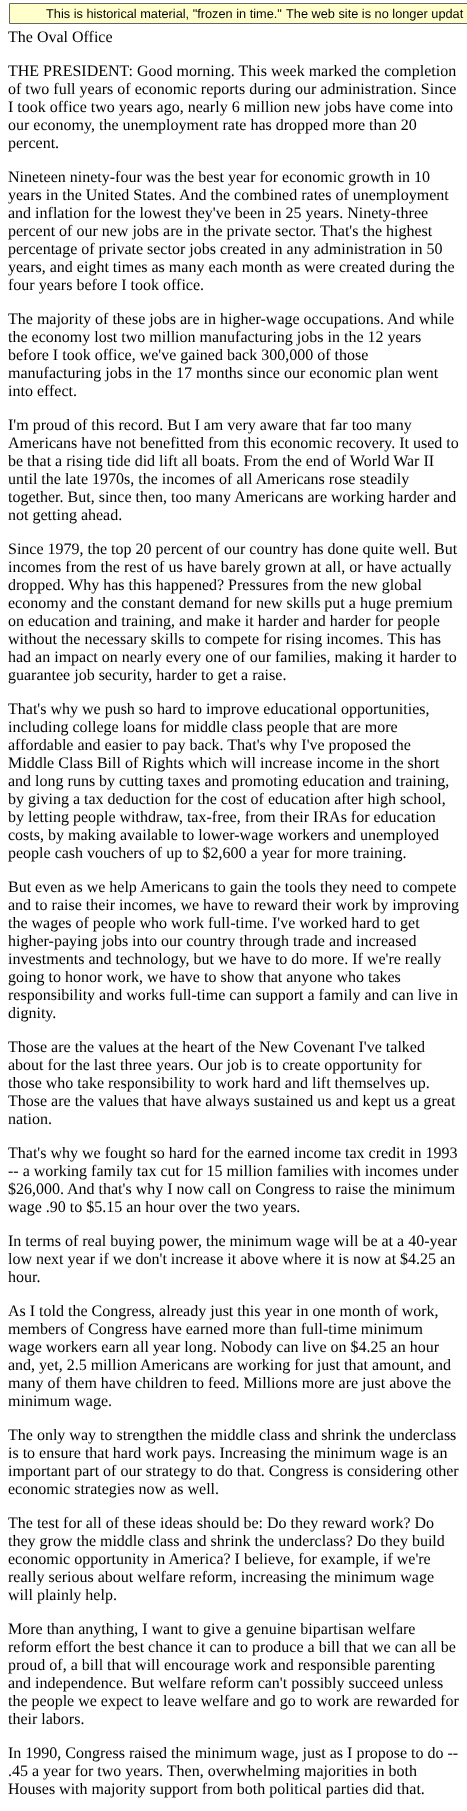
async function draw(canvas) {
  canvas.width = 467;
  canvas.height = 1811;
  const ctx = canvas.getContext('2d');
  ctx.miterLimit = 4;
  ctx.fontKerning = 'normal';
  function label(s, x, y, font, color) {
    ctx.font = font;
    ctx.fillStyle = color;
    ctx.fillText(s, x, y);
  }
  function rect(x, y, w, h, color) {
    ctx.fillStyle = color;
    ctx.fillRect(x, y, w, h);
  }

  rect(0, 0, 467, 1811, '#fff');
  ctx.fillStyle = '#ffc';
  ctx.beginPath();
  ctx.rect(9.5, 3.5, 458, 20);
  ctx.fill();
  ctx.strokeStyle = '#666';
  ctx.stroke();
  label('This is historical material, "frozen in time."', 46, 18, '12.75px Liberation Sans', '#000');
  label('The web site is no longer updat', 286, 18, '12.75px Liberation Sans', '#000');
  label('The Oval Office', 8, 42, '16px Liberation Serif', '#000');
  label('THE PRESIDENT: Good morning. This week marked the completion', 8, 76, '16px Liberation Serif', '#000');
  label('of two full years of economic reports during our administration. Since', 8, 94, '16px Liberation Serif', '#000');
  label('I took office two years ago, nearly 6 million new jobs have come into', 8, 112, '16px Liberation Serif', '#000');
  label('our economy, the unemployment rate has dropped more than 20', 8, 130, '16px Liberation Serif', '#000');
  label('percent.', 8, 148, '16px Liberation Serif', '#000');
  label('Nineteen ninety-four was the best year for economic growth in 10', 8, 182, '16px Liberation Serif', '#000');
  label('years in the United States.', 8, 200, '16px Liberation Serif', '#000');
  label('And the combined rates of unemployment', 179, 200, '16px Liberation Serif', '#000');
  label('and inflation for the lowest they\'ve been in 25 years. Ninety-three', 8, 218, '16px Liberation Serif', '#000');
  label('percent of our new jobs are in the private sector. That\'s the highest', 8, 236, '16px Liberation Serif', '#000');
  label('percentage of private sector jobs created in any administration in 50', 8, 254, '16px Liberation Serif', '#000');
  label('years, and eight times as many each month as were created during the', 8, 272, '16px Liberation Serif', '#000');
  label('four years before I took office.', 8, 290, '16px Liberation Serif', '#000');
  label('The majority of these jobs are in higher-wage occupations. And while', 8, 324, '16px Liberation Serif', '#000');
  label('the economy lost two million manufacturing jobs in the 12 years', 8, 342, '16px Liberation Serif', '#000');
  label('before I took office, we\'ve gained back 300,000 of those', 8, 360, '16px Liberation Serif', '#000');
  label('manufacturing jobs in the 17 months since our economic plan went', 8, 378, '16px Liberation Serif', '#000');
  label('into effect.', 8, 396, '16px Liberation Serif', '#000');
  label('I\'m proud of this record. But I am very aware that far too many', 8, 430, '16px Liberation Serif', '#000');
  label('Americans have not benefitted from this economic recovery. It used to', 8, 448, '16px Liberation Serif', '#000');
  label('be that a rising tide did lift all boats. From the end of World War II', 8, 466, '16px Liberation Serif', '#000');
  label('until the late 1970s, the incomes of all Americans rose steadily', 8, 484, '16px Liberation Serif', '#000');
  label('together. But, since then, too many Americans are working harder and', 8, 502, '16px Liberation Serif', '#000');
  label('not getting ahead.', 8, 520, '16px Liberation Serif', '#000');
  label('Since 1979, the top 20 percent of our country has done quite well. But', 8, 554, '16px Liberation Serif', '#000');
  label('incomes from the rest of us have barely grown at all, or have actually', 8, 572, '16px Liberation Serif', '#000');
  label('dropped. Why has this happened? Pressures from the new global', 8, 590, '16px Liberation Serif', '#000');
  label('economy and the constant demand for new skills put a huge premium', 8, 608, '16px Liberation Serif', '#000');
  label('on education and training, and make it harder and harder for people', 8, 626, '16px Liberation Serif', '#000');
  label('without the necessary skills to compete for rising incomes. This has', 8, 644, '16px Liberation Serif', '#000');
  label('had an impact on nearly every one of our families, making it harder to', 8, 662, '16px Liberation Serif', '#000');
  label('guarantee job security, harder to get a raise.', 8, 680, '16px Liberation Serif', '#000');
  label('That\'s why we push so hard to improve educational opportunities,', 8, 714, '16px Liberation Serif', '#000');
  label('including college loans for middle class people that are more', 8, 732, '16px Liberation Serif', '#000');
  label('affordable and easier to pay back. That\'s why I\'ve proposed the', 8, 750, '16px Liberation Serif', '#000');
  label('Middle Class Bill of Rights which will increase income in the short', 8, 768, '16px Liberation Serif', '#000');
  label('and long runs by cutting taxes and promoting education and training,', 8, 786, '16px Liberation Serif', '#000');
  label('by giving a tax deduction for the cost of education after high school,', 8, 804, '16px Liberation Serif', '#000');
  label('by letting people withdraw, tax-free, from their IRAs for education', 8, 822, '16px Liberation Serif', '#000');
  label('costs, by making available to lower-wage workers and unemployed', 8, 840, '16px Liberation Serif', '#000');
  label('people cash vouchers of up to $2,600 a year for more training.', 8, 858, '16px Liberation Serif', '#000');
  label('But even as we help Americans to gain the tools they need to compete', 8, 892, '16px Liberation Serif', '#000');
  label('and to raise their incomes, we have to reward their work by improving', 8, 910, '16px Liberation Serif', '#000');
  label('the wages of people who work full-time. I\'ve worked hard to get', 8, 928, '16px Liberation Serif', '#000');
  label('higher-paying jobs into our country through trade and increased', 8, 946, '16px Liberation Serif', '#000');
  label('investments and technology, but we have to do more. If we\'re really', 8, 964, '16px Liberation Serif', '#000');
  label('going to honor work, we have to show that anyone who takes', 8, 982, '16px Liberation Serif', '#000');
  label('responsibility and works full-time can support a family and can live in', 8, 1000, '16px Liberation Serif', '#000');
  label('dignity.', 8, 1018, '16px Liberation Serif', '#000');
  label('Those are the values at the heart of the New Covenant I\'ve talked', 8, 1052, '16px Liberation Serif', '#000');
  label('about for the last three years. Our job is to create opportunity for', 8, 1070, '16px Liberation Serif', '#000');
  label('those who take responsibility to work hard and lift themselves up.', 8, 1088, '16px Liberation Serif', '#000');
  label('Those are the values that have always sustained us and kept us a great', 8, 1106, '16px Liberation Serif', '#000');
  label('nation.', 8, 1124, '16px Liberation Serif', '#000');
  label('That\'s why we fought so hard for the earned income tax credit in 1993', 8, 1158, '16px Liberation Serif', '#000');
  label('-- a working family tax cut for 15 million families with incomes under', 8, 1176, '16px Liberation Serif', '#000');
  label('$26,000.', 8, 1194, '16px Liberation Serif', '#000');
  label('And that\'s why I now call on Congress to raise the minimum', 67, 1194, '16px Liberation Serif', '#000');
  label('wage .90 to $5.15 an hour over the two years.', 8, 1212, '16px Liberation Serif', '#000');
  label('In terms of real buying power, the minimum wage will be at a 40-year', 8, 1246, '16px Liberation Serif', '#000');
  label('low next year if we don\'t increase it above where it is now at $4.25 an', 8, 1264, '16px Liberation Serif', '#000');
  label('hour.', 8, 1282, '16px Liberation Serif', '#000');
  label('As I told the Congress, already just this year in one month of work,', 8, 1316, '16px Liberation Serif', '#000');
  label('members of Congress have earned more than full-time minimum', 8, 1334, '16px Liberation Serif', '#000');
  label('wage workers earn all year long. Nobody can live on $4.25 an hour', 8, 1352, '16px Liberation Serif', '#000');
  label('and, yet, 2.5 million Americans are working for just that amount, and', 8, 1370, '16px Liberation Serif', '#000');
  label('many of them have children to feed. Millions more are just above the', 8, 1388, '16px Liberation Serif', '#000');
  label('minimum wage.', 8, 1406, '16px Liberation Serif', '#000');
  label('The only way to strengthen the middle class and shrink the underclass', 8, 1440, '16px Liberation Serif', '#000');
  label('is to ensure that hard work pays. Increasing the minimum wage is an', 8, 1458, '16px Liberation Serif', '#000');
  label('important part of our strategy to do that. Congress is considering other', 8, 1476, '16px Liberation Serif', '#000');
  label('economic strategies now as well.', 8, 1494, '16px Liberation Serif', '#000');
  label('The test for all of these ideas should be: Do they reward work? Do', 8, 1528, '16px Liberation Serif', '#000');
  label('they grow the middle class and shrink the underclass? Do they build', 8, 1546, '16px Liberation Serif', '#000');
  label('economic opportunity in America? I believe, for example, if we\'re', 8, 1564, '16px Liberation Serif', '#000');
  label('really serious about welfare reform, increasing the minimum wage', 8, 1582, '16px Liberation Serif', '#000');
  label('will plainly help.', 8, 1600, '16px Liberation Serif', '#000');
  label('More than anything, I want to give a genuine bipartisan welfare', 8, 1634, '16px Liberation Serif', '#000');
  label('reform effort the best chance it can to produce a bill that we can all be', 8, 1652, '16px Liberation Serif', '#000');
  label('proud of, a bill that will encourage work and responsible parenting', 8, 1670, '16px Liberation Serif', '#000');
  label('and independence. But welfare reform can\'t possibly succeed unless', 8, 1688, '16px Liberation Serif', '#000');
  label('the people we expect to leave welfare and go to work are rewarded for', 8, 1706, '16px Liberation Serif', '#000');
  label('their labors.', 8, 1724, '16px Liberation Serif', '#000');
  label('In 1990, Congress raised the minimum wage, just as I propose to do --', 8, 1758, '16px Liberation Serif', '#000');
  label('.45 a year for two years. Then, overwhelming majorities in both', 8, 1776, '16px Liberation Serif', '#000');
  label('Houses with majority support from both political parties did that.', 8, 1794, '16px Liberation Serif', '#000');
}

draw(document.querySelector('canvas'));
